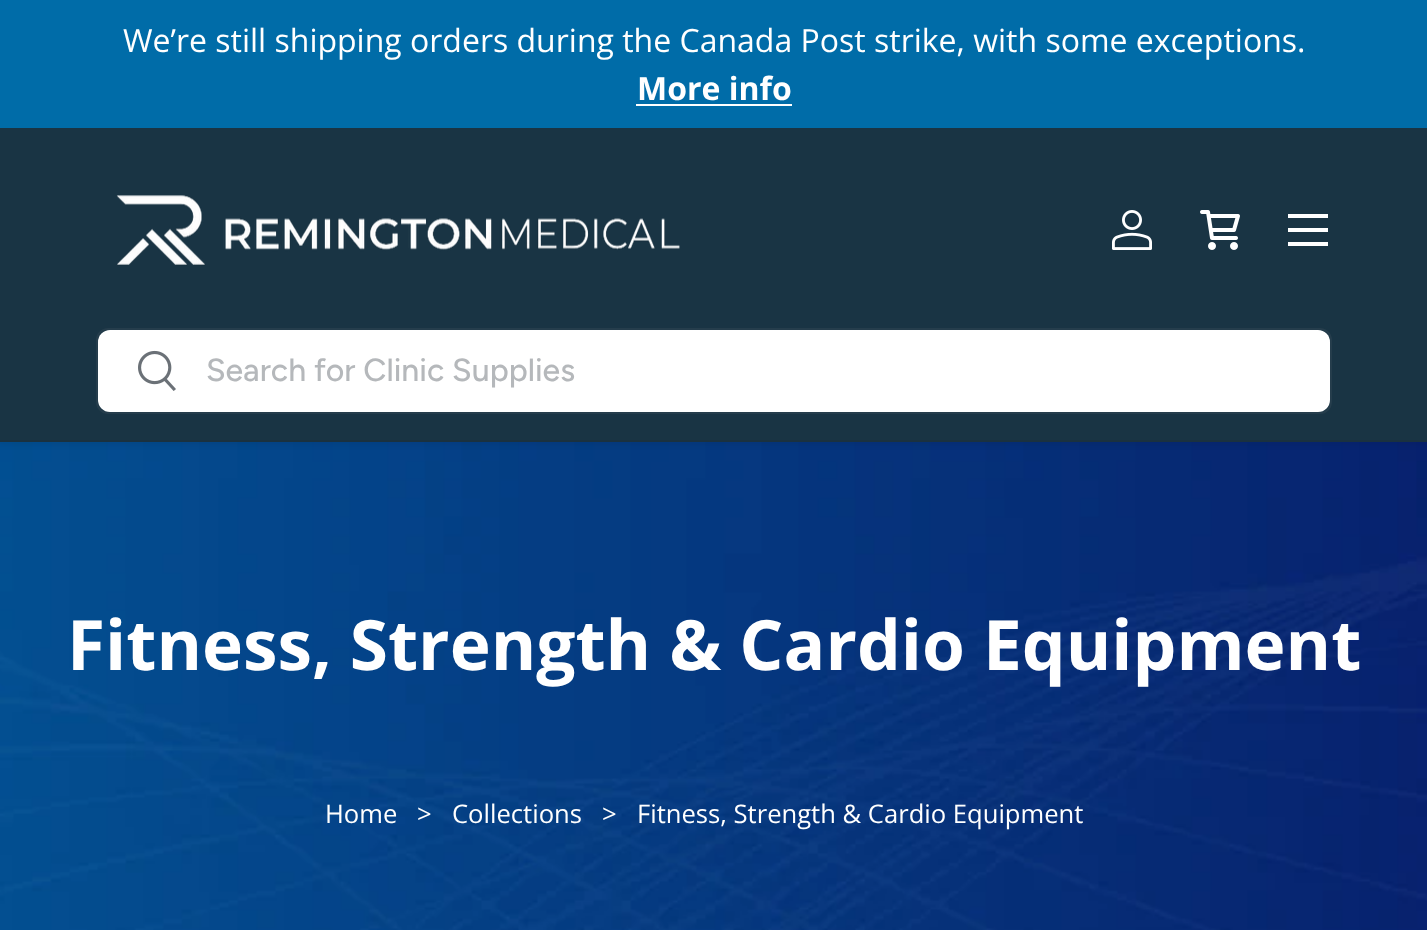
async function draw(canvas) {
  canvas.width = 1427;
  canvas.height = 930;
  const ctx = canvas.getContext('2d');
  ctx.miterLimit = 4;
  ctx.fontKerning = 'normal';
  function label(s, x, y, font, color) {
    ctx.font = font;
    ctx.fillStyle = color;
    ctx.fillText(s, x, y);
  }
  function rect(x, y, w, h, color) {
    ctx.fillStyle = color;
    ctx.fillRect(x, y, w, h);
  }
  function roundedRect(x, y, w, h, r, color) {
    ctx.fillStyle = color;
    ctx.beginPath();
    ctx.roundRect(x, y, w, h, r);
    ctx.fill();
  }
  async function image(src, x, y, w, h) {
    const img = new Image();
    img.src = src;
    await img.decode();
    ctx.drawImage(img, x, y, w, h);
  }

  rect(0, 0, 1427, 930, '#fff');
  await image('assets/img5.png', 0, 442, 1427, 488);
  ctx.fillStyle = '#00000014';
  ctx.filter = 'blur(3px)';
  ctx.beginPath();
  ctx.rect(-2, 126, 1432, 318);
  ctx.fill();
  ctx.filter = 'none';
  rect(0, 0, 1427, 128, '#006ca8');
  label('We’re still shipping orders during the Canada Post strike, with some exceptions.', 123, 52, '32px Open Sans', '#fff');
  label('More info', 637, 100, 'bold 32px Open Sans', '#fff');
  rect(636, 104, 156, 2, '#fff');
  rect(0, 128, 1427, 312, '#193444');
  await image('assets/img1.png', 116, 195, 564, 71);
  await image('assets/img2.png', 1112, 210, 40, 40);
  await image('assets/img3.png', 1200, 210, 40, 40);
  rect(1288, 214, 40, 4, '#fff');
  rect(1288, 242, 40, 4, '#fff');
  rect(1288, 228, 40, 4, '#fff');
  ctx.beginPath();
  ctx.roundRect(97, 329, 1234, 84, 11);
  ctx.strokeStyle = '#253d4c';
  ctx.lineWidth = 2;
  ctx.stroke();
  roundedRect(98, 330, 1232, 82, 12, '#fff');
  await image('assets/img4.png', 138, 350, 38, 41);
  label('Search for Clinic Supplies', 206, 381, '500 32px Figtree', '#b5b8bb');
  rect(0, 440, 1427, 2, '#1a313f');
  label('Fitness, Strength & Cardio Equipment', 67, 670, 'bold 69.4px Open Sans', '#fff');
  label('Home', 325, 823, '25.6px Open Sans', '#fff');
  label('>', 417, 823, '25.6px Open Sans', '#fff');
  label('Collections', 452, 823, '25.6px Open Sans', '#fff');
  label('>', 602, 823, '25.6px Open Sans', '#fff');
  label('Fitness, Strength & Cardio Equipment', 637, 823, '25.6px Open Sans', '#fff');
}

draw(document.querySelector('canvas'));
